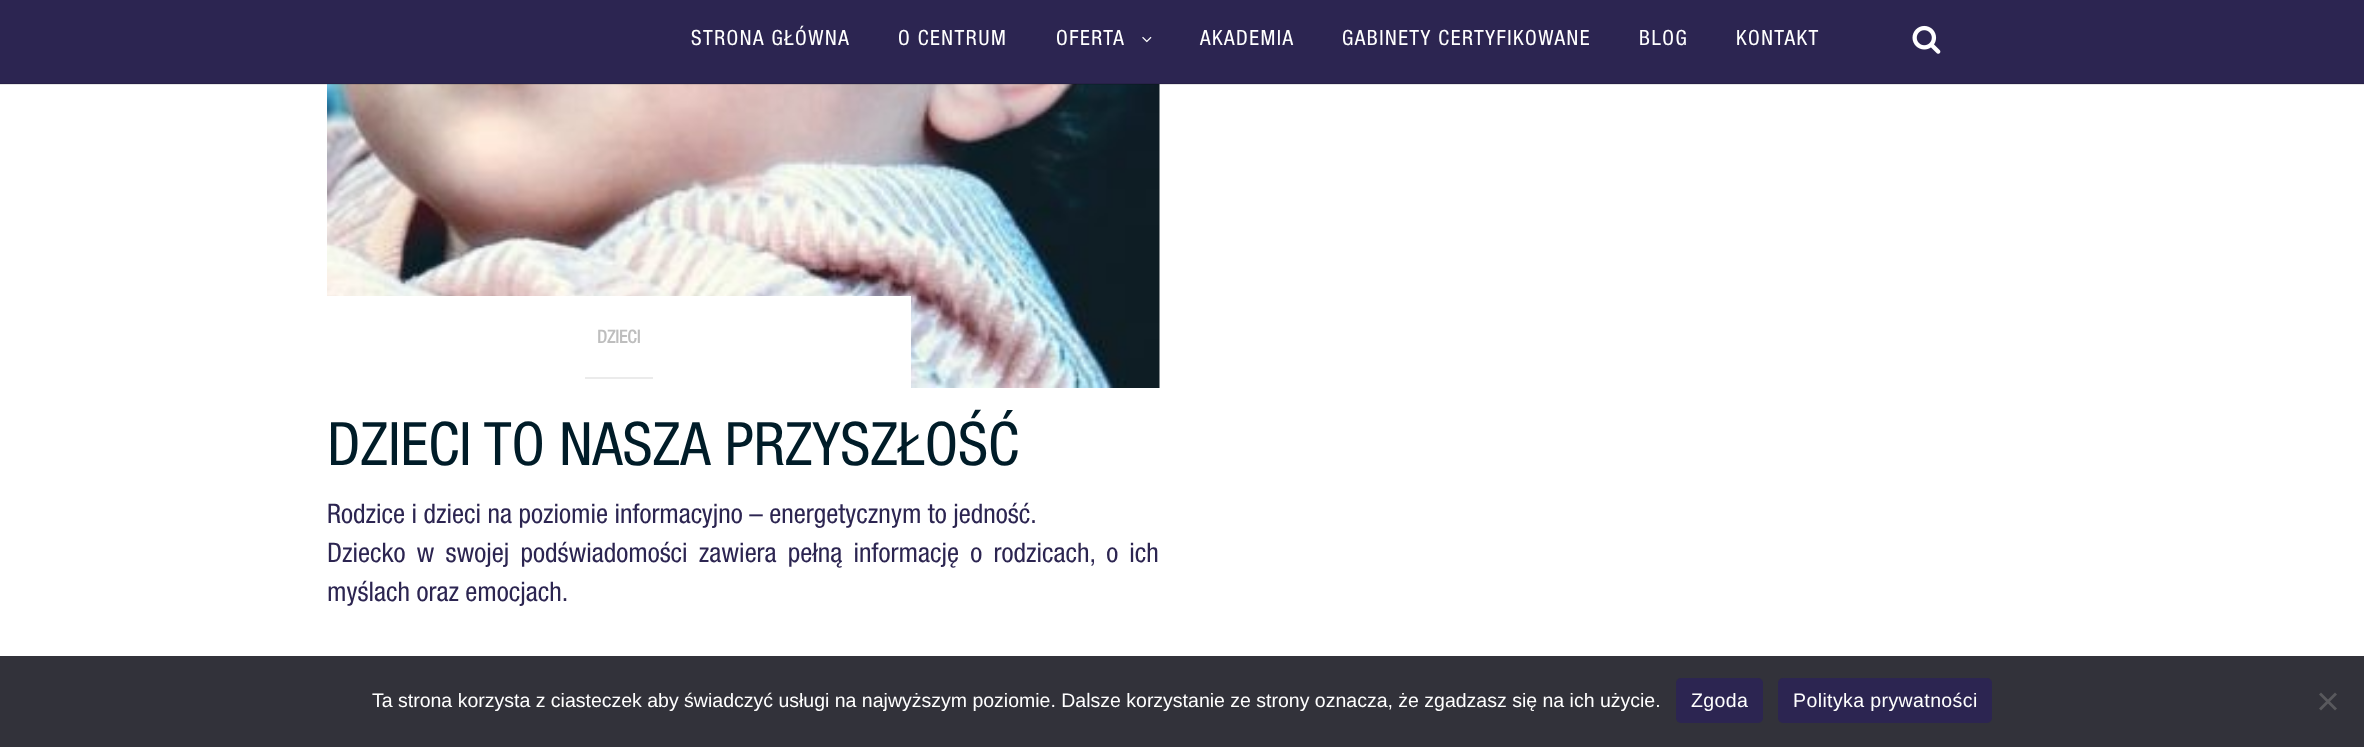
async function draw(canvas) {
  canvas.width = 2364;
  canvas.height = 747;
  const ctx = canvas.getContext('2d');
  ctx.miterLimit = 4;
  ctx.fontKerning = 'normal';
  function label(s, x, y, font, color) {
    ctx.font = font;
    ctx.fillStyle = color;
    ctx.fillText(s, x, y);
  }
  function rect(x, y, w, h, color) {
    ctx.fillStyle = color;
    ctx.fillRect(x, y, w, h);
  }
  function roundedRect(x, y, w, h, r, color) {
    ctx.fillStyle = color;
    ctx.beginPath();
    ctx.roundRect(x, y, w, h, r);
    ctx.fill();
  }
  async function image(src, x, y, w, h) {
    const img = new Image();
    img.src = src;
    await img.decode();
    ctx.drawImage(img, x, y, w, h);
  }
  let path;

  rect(0, 0, 2364, 747, '#fff');
  rect(0, 0, 2364, 84, '#2c2551');
  await image('assets/img3.png', 327, 84, 833, 304);
  rect(0, 83, 2364, 2, '#0000001a');
  ctx.letterSpacing = '1.5px';
  label('STRONA GŁÓWNA', 691, 45, '21px Helvetica Neue', '#fff');
  label('O CENTRUM', 898, 45, '21px Helvetica Neue', '#fff');
  label('OFERTA', 1056, 45, '21px Helvetica Neue', '#fff');
  await image('assets/img1.png', 1142, 36, 10, 7);
  label('AKADEMIA', 1200, 45, '21px Helvetica Neue', '#fff');
  label('GABINETY CERTYFIKOWANE', 1342, 45, '21px Helvetica Neue', '#fff');
  label('BLOG', 1639, 45, '21px Helvetica Neue', '#fff');
  label('KONTAKT', 1736, 45, '21px Helvetica Neue', '#fff');
  await image('assets/img2.png', 1912, 25, 29, 29);
  rect(327, 296, 584, 92, '#fff');
  ctx.letterSpacing = '0px';
  label('DZIECI', 597, 343, 'bold 18px Helvetica Neue', '#bebebe');
  rect(585, 377, 68, 2, '#ebebeb');
  label('DZIECI TO NASZA PRZYSZŁOŚĆ', 327, 465, '60px Helvetica Neue', '#001c28');
  label('Rodzice i dzieci na poziomie informacyjno – energetycznym to jedność.', 327, 523, '27px Helvetica Neue', '#2c2551');
  ctx.wordSpacing = '4.75px';
  label('Dziecko w swojej podświadomości zawiera pełną informację o rodzicach, o ich', 327, 562, '27px Helvetica Neue', '#2c2551');
  ctx.wordSpacing = '0px';
  label('myślach oraz emocjach.', 327, 601, '27px Helvetica Neue', '#2c2551');
  rect(0, 656, 2364, 91, '#32323a');
  label('Ta strona korzysta z ciasteczek aby świadczyć usługi na najwyższym poziomie. Dalsze korzystanie ze strony oznacza, że zgadzasz się na ich użycie.', 372, 707, '19.5px Liberation Sans', '#fff');
  roundedRect(1676, 678, 87, 45, 5, '#2c2551');
  ctx.letterSpacing = '0.4px';
  label('Zgoda', 1691, 707, '19.5px Liberation Sans', '#fff');
  roundedRect(1778, 678, 214, 45, 5, '#2c2551');
  label('Polityka prywatności', 1793, 707, '19.5px Liberation Sans', '#fff');
  ctx.fillStyle = '#59595d';
  path = new Path2D('M2335 692.5L2337 694.5L2321 710.5L2319 708.5Z');
  ctx.fill(path);
  path = new Path2D('M2319 694.5L2321 692.5L2337 708.5L2335 710.5Z');
  ctx.fill(path);
}

draw(document.querySelector('canvas'));
